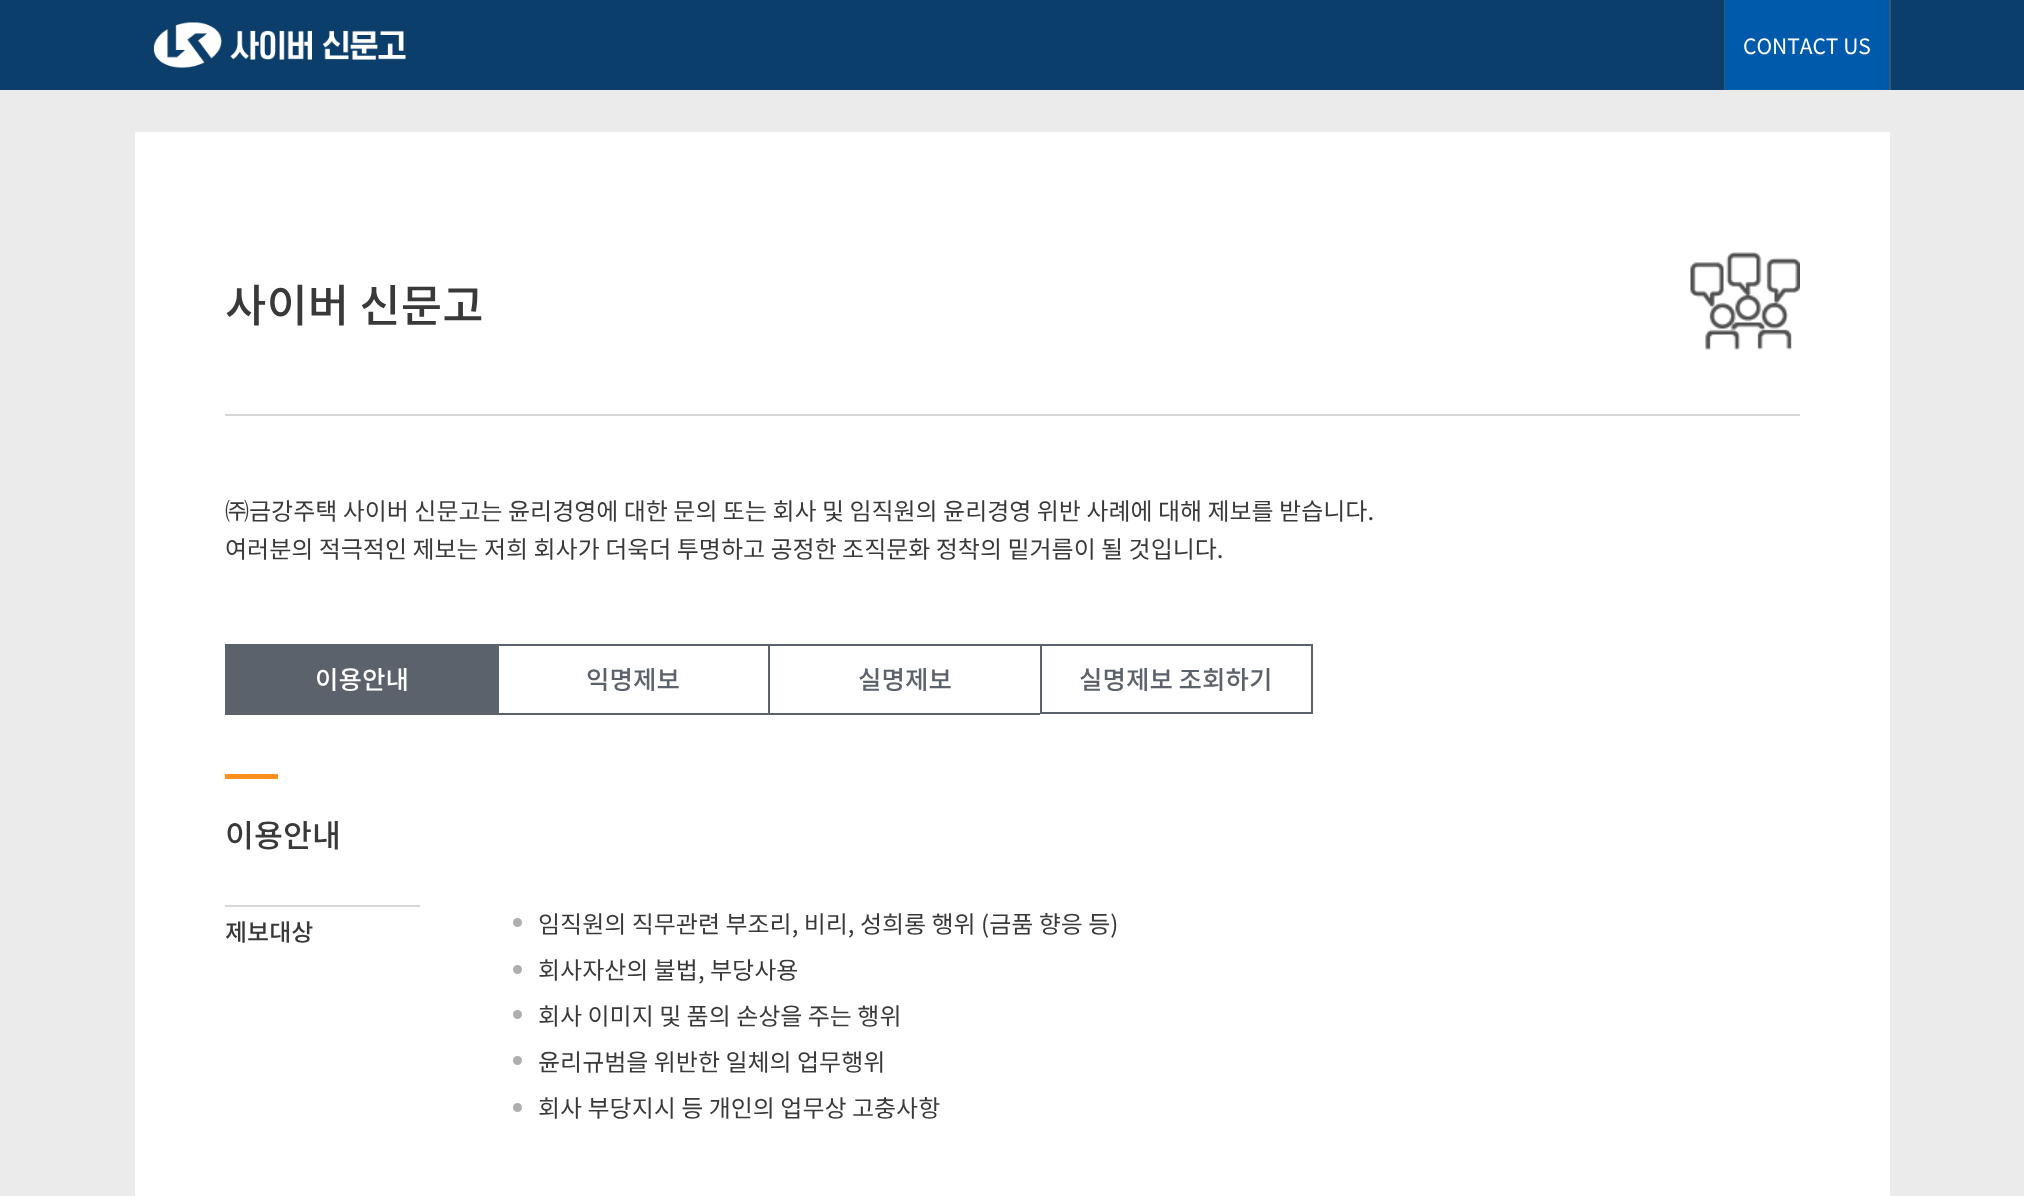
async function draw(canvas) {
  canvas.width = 2024;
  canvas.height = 1196;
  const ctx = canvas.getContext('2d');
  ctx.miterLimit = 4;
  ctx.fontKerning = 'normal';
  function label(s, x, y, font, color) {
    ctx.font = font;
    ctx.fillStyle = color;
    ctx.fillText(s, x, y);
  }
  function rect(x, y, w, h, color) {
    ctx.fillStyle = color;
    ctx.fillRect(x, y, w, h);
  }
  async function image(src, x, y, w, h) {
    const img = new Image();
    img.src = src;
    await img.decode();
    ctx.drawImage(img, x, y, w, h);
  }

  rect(0, 0, 2024, 1196, '#ebebeb');
  rect(0, 0, 2024, 90, '#0c3e6b');
  await image('assets/img1.png', 153, 22, 253, 46);
  rect(1889, 0, 2, 90, '#305b81');
  rect(1724, 0, 1, 90, '#305b81');
  rect(1725, 0, 164, 90, '#005aab');
  label('CONTACT US', 1743, 54, '21px Noto Sans KR', '#fff');
  rect(135, 132, 1755, 1064, '#fff');
  rect(225, 414, 1575, 2, '#d7d7d7');
  label('사이버 신문고', 225, 322, '500 45px Noto Sans KR', '#393939');
  await image('assets/img2.png', 1690, 252, 110, 98);
  label('㈜금강주택 사이버 신문고는 윤리경영에 대한 문의 또는 회사 및 임직원의 윤리경영 위반 사례에 대해 제보를 받습니다.', 225, 520, '24px Noto Sans KR', '#393939');
  label('여러분의 적극적인 제보는 저희 회사가 더욱더 투명하고 공정한 조직문화 정착의 밑거름이 될 것입니다.', 225, 558, '24px Noto Sans KR', '#393939');
  rect(225, 644, 272, 1, '#5b626c');
  rect(225, 713, 815, 2, '#5b626c');
  rect(225, 644, 2, 70, '#5b626c');
  rect(227, 645, 270, 68, '#5b626c');
  label('이용안내', 315, 689, '500 25.5px Noto Sans KR', '#fff');
  rect(497, 644, 543, 2, '#5b626c');
  rect(497, 644, 2, 70, '#5b626c');
  label('익명제보', 586, 689, '500 25.5px Noto Sans KR', '#5b626c');
  rect(768, 644, 2, 70, '#5b626c');
  label('실명제보', 858, 689, '500 25.5px Noto Sans KR', '#5b626c');
  ctx.strokeStyle = '#5b626c';
  ctx.lineWidth = 2;
  ctx.strokeRect(1041, 645, 271, 68);
  label('실명제보 조회하기', 1079, 689, '500 25.5px Noto Sans KR', '#5b626c');
  rect(225, 774, 53, 5, '#ff901e');
  label('이용안내', 225, 847, '500 31.5px Noto Sans KR', '#393939');
  rect(225, 905, 195, 2, '#d7d7d7');
  label('제보대상', 225, 941, '500 24px Noto Sans KR', '#393939');
  ctx.fillStyle = '#afafaf';
  ctx.beginPath();
  ctx.arc(517.5, 922.5, 4.5, 0, 2 * Math.PI);
  ctx.fill();
  label('임직원의 직무관련 부조리, 비리, 성희롱 행위 (금품 향응 등)', 538, 933, '24px Noto Sans KR', '#393939');
  ctx.fillStyle = '#afafaf';
  ctx.beginPath();
  ctx.arc(517.5, 969.5, 4.5, 0, 2 * Math.PI);
  ctx.fill();
  label('회사자산의 불법, 부당사용', 538, 979, '24px Noto Sans KR', '#393939');
  ctx.fillStyle = '#afafaf';
  ctx.beginPath();
  ctx.arc(517.5, 1014.5, 4.5, 0, 2 * Math.PI);
  ctx.fill();
  label('회사 이미지 및 품의 손상을 주는 행위', 538, 1025, '24px Noto Sans KR', '#393939');
  ctx.fillStyle = '#afafaf';
  ctx.beginPath();
  ctx.arc(517.5, 1060.5, 4.5, 0, 2 * Math.PI);
  ctx.fill();
  label('윤리규범을 위반한 일체의 업무행위', 538, 1071, '24px Noto Sans KR', '#393939');
  ctx.fillStyle = '#afafaf';
  ctx.beginPath();
  ctx.arc(517.5, 1107.5, 4.5, 0, 2 * Math.PI);
  ctx.fill();
  label('회사 부당지시 등 개인의 업무상 고충사항', 538, 1117, '24px Noto Sans KR', '#393939');
}

draw(document.querySelector('canvas'));
